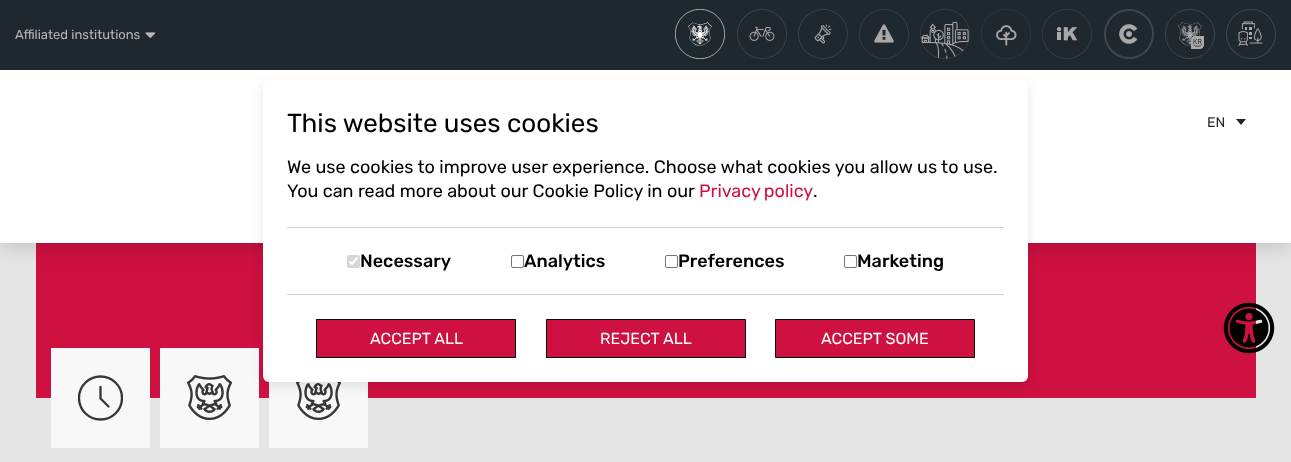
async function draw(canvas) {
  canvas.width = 1291;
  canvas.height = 462;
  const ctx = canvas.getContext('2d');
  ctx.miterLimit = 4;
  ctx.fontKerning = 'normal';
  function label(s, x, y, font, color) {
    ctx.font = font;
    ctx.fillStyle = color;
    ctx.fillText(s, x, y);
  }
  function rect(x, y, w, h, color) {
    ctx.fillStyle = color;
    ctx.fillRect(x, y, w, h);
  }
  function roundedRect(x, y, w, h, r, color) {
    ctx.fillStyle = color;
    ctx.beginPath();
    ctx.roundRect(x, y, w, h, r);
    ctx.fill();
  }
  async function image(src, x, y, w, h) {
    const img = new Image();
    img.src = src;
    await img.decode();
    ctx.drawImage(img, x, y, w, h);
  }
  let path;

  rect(0, 0, 1291, 462, '#e5e5e5');
  rect(36, 243, 1220, 155, '#ce1141');
  ctx.fillStyle = '#00000026';
  ctx.filter = 'blur(10px)';
  ctx.beginPath();
  ctx.rect(0, 74, 1291, 173);
  ctx.fill();
  ctx.filter = 'none';
  rect(0, 0, 1291, 70, '#1f282e');
  label('Affiliated institutions', 15, 39, '13px Rubik', '#b7b7b7');
  await image('assets/img1.png', 145, 32, 11, 6);
  await image('assets/img2.png', 675, 9, 50, 50);
  await image('assets/img3.png', 737, 9, 50, 50);
  await image('assets/img4.png', 798, 9, 50, 50);
  await image('assets/img5.png', 859, 9, 50, 50);
  await image('assets/img6.png', 920, 9, 50, 50);
  await image('assets/img7.png', 981, 9, 50, 50);
  await image('assets/img8.png', 1042, 9, 50, 50);
  await image('assets/img9.png', 1104, 9, 50, 50);
  await image('assets/img10.png', 1165, 9, 50, 50);
  await image('assets/img11.png', 1226, 9, 50, 50);
  rect(0, 70, 1291, 173, '#fff');
  rect(160, 348, 99, 100, '#f8f8f8');
  rect(269, 382, 99, 66, '#f8f8f8');
  await image('assets/img13.png', 296, 382, 45, 39);
  ctx.fillStyle = '#0000001a';
  ctx.filter = 'blur(6px)';
  ctx.beginPath();
  ctx.roundRect(263, 84, 765, 302, 6);
  ctx.fill();
  ctx.filter = 'none';
  roundedRect(263, 80, 765, 302, 6, '#fff');
  rect(287, 227, 717, 1, '#d1d1d1');
  label('This website uses cookies', 287, 132, '26px Rubik', '#000');
  label('We use cookies to improve user experience. Choose what cookies you allow us to use.', 287, 173, '18px Rubik', '#000');
  label('You can read more about our Cookie Policy in our', 287, 197, '18px Rubik', '#000');
  ctx.wordSpacing = '-1px';
  label('Privacy policy', 699, 197, '18px Rubik', '#ce1141');
  ctx.wordSpacing = '0px';
  label('.', 813, 197, '18px Rubik', '#000');
  rect(287, 294, 717, 1, '#d1d1d1');
  roundedRect(347, 255, 13, 13, 2, '#d6d6d6');
  path = new Path2D('M349.5 261.5L352 264L357.5 257.5');
  ctx.strokeStyle = '#fff';
  ctx.lineWidth = 2.1;
  ctx.stroke(path);
  label('Necessary', 360, 267, '500 18px Rubik', '#000');
  ctx.beginPath();
  ctx.roundRect(511.5, 255.5, 12, 12, 1.5);
  ctx.strokeStyle = '#767676';
  ctx.lineWidth = 1;
  ctx.stroke();
  label('Analytics', 524, 267, '500 18px Rubik', '#000');
  ctx.beginPath();
  ctx.roundRect(665.5, 255.5, 12, 12, 1.5);
  ctx.stroke();
  label('Preferences', 678, 267, '500 18px Rubik', '#000');
  ctx.beginPath();
  ctx.roundRect(844.5, 255.5, 12, 12, 1.5);
  ctx.stroke();
  label('Marketing', 857, 267, '500 18px Rubik', '#000');
  ctx.fillStyle = '#ce1141';
  ctx.beginPath();
  ctx.rect(316.5, 319.5, 199, 38);
  ctx.fill();
  ctx.strokeStyle = '#000';
  ctx.stroke();
  label('ACCEPT ALL', 370, 344, '16px Rubik', '#fff');
  ctx.fillStyle = '#ce1141';
  ctx.beginPath();
  ctx.rect(546.5, 319.5, 199, 38);
  ctx.fill();
  ctx.stroke();
  label('REJECT ALL', 600, 344, '16px Rubik', '#fff');
  ctx.fillStyle = '#ce1141';
  ctx.beginPath();
  ctx.rect(775.5, 319.5, 199, 38);
  ctx.fill();
  ctx.stroke();
  label('ACCEPT SOME', 821, 344, '16px Rubik', '#fff');
  label('EN', 1207, 127, '14px Rubik', '#1f272d');
  path = new Path2D('M1236 119H1246L1241 125Z');
  ctx.fill(path);
  rect(51, 348, 99, 100, '#f8f8f8');
  ctx.save();
  ctx.beginPath();
  ctx.rect(78, 375, 45, 46);
  ctx.clip();
  ctx.beginPath();
  ctx.arc(100.5, 398, 21.5, 0, 2 * Math.PI);
  ctx.strokeStyle = '#373535';
  ctx.lineWidth = 2.3;
  ctx.stroke();
  ctx.restore();
  path = new Path2D('M100.5 387V398.5L108.5 406.5');
  ctx.strokeStyle = '#373535';
  ctx.lineWidth = 2.3;
  ctx.lineCap = 'round';
  ctx.lineJoin = 'round';
  ctx.stroke(path);
  await image('assets/img12.png', 187, 375, 45, 46);
  await image('assets/img14.png', 1223, 302, 52, 52);
}

draw(document.querySelector('canvas'));
